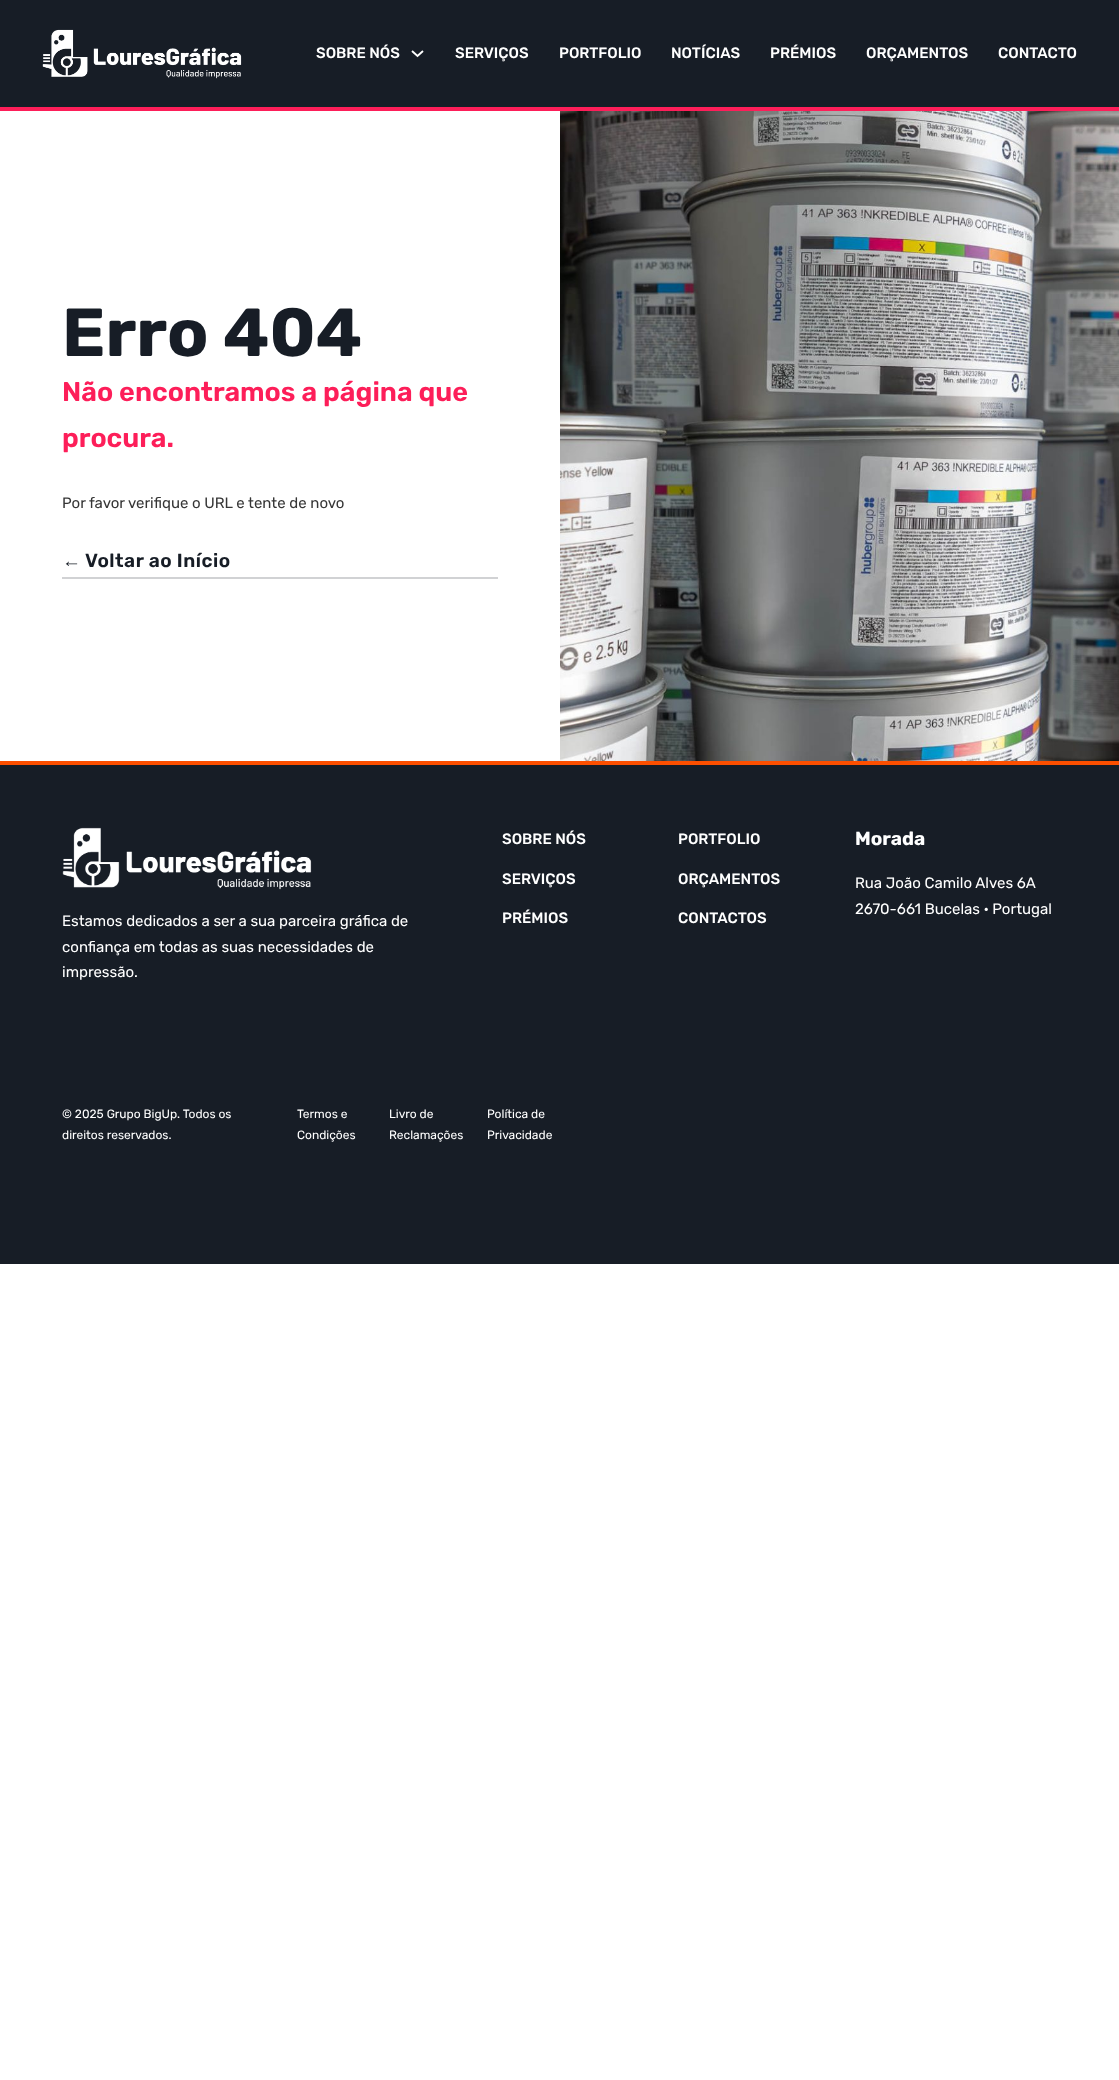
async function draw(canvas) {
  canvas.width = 1119;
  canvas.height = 2080;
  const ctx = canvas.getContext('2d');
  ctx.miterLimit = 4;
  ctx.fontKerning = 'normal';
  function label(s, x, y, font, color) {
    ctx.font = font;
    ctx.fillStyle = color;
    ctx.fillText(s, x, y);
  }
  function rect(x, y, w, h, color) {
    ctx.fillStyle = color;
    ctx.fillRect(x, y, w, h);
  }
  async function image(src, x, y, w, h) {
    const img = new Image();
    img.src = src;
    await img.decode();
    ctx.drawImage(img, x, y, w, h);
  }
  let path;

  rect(0, 0, 1119, 2080, '#fff');
  rect(0, 0, 1119, 107, '#171d26');
  rect(0, 107, 1119, 4, '#fd1e59');
  await image('assets/img1.png', 42, 29, 200, 50);
  label('SOBRE NÓS', 316, 58, '500 15px Rubik', '#fff');
  path = new Path2D('M412 51L417.5 56L423 51');
  ctx.strokeStyle = '#fff';
  ctx.lineWidth = 1.9;
  ctx.stroke(path);
  label('SERVIÇOS', 455, 58, '500 15px Rubik', '#fff');
  label('PORTFOLIO', 559, 58, '500 15px Rubik', '#fff');
  label('NOTÍCIAS', 671, 58, '500 15px Rubik', '#fff');
  label('PRÉMIOS', 770, 58, '500 15px Rubik', '#fff');
  label('ORÇAMENTOS', 866, 58, '500 15px Rubik', '#fff');
  label('CONTACTO', 998, 58, '500 15px Rubik', '#fff');
  label('Erro 404', 62, 356, 'bold 68px Rubik', '#171d26');
  label('Não encontramos a página que', 62, 401, '600 27px Rubik', '#fd1e59');
  label('procura.', 62, 447, '600 27px Rubik', '#fd1e59');
  label('Por favor verifique o URL e tente de novo', 62, 508, '15px Rubik', '#363636');
  rect(62, 577, 436, 2, '#d1d2d4');
  ctx.letterSpacing = '0.5px';
  label('←', 62, 567, 'bold 19px Liberation Serif', '#171d26');
  label('Voltar ao Início', 85, 567, '600 19px Rubik', '#171d26');
  await image('assets/img2.png', 560, 111, 559, 650);
  rect(0, 765, 1119, 499, '#171d26');
  rect(0, 761, 1119, 4, '#fd4f00');
  ctx.letterSpacing = '0px';
  label('SOBRE NÓS', 502, 844, '500 15px Rubik', '#fff');
  label('SERVIÇOS', 502, 884, '500 15px Rubik', '#fff');
  label('PRÉMIOS', 502, 923, '500 15px Rubik', '#fff');
  label('PORTFOLIO', 678, 844, '500 15px Rubik', '#fff');
  label('ORÇAMENTOS', 678, 884, '500 15px Rubik', '#fff');
  label('CONTACTOS', 678, 923, '500 15px Rubik', '#fff');
  label('Morada', 855, 845, 'bold 19px Rubik', '#fff');
  label('Rua João Camilo Alves 6A', 855, 888, '15px Rubik', '#fff');
  label('2670-661 Bucelas · Portugal', 855, 914, '15px Rubik', '#fff');
  await image('assets/img3.png', 62, 827, 250, 63);
  label('Estamos dedicados a ser a sua parceira gráfica de', 62, 926, '15px Rubik', '#fff');
  label('confiança em todas as suas necessidades de', 62, 952, '15px Rubik', '#fff');
  label('impressão.', 62, 977, '15px Rubik', '#fff');
  label('© 2025 Grupo BigUp. Todos os', 62, 1118, '12px Rubik', '#fff');
  label('direitos reservados.', 62, 1139, '12px Rubik', '#fff');
  label('Termos e', 297, 1118, '12px Rubik', '#fff');
  label('Condições', 297, 1139, '12px Rubik', '#fff');
  label('Livro de', 389, 1118, '12px Rubik', '#fff');
  label('Reclamações', 389, 1139, '12px Rubik', '#fff');
  label('Política de', 487, 1118, '12px Rubik', '#fff');
  label('Privacidade', 487, 1139, '12px Rubik', '#fff');
}

draw(document.querySelector('canvas'));
